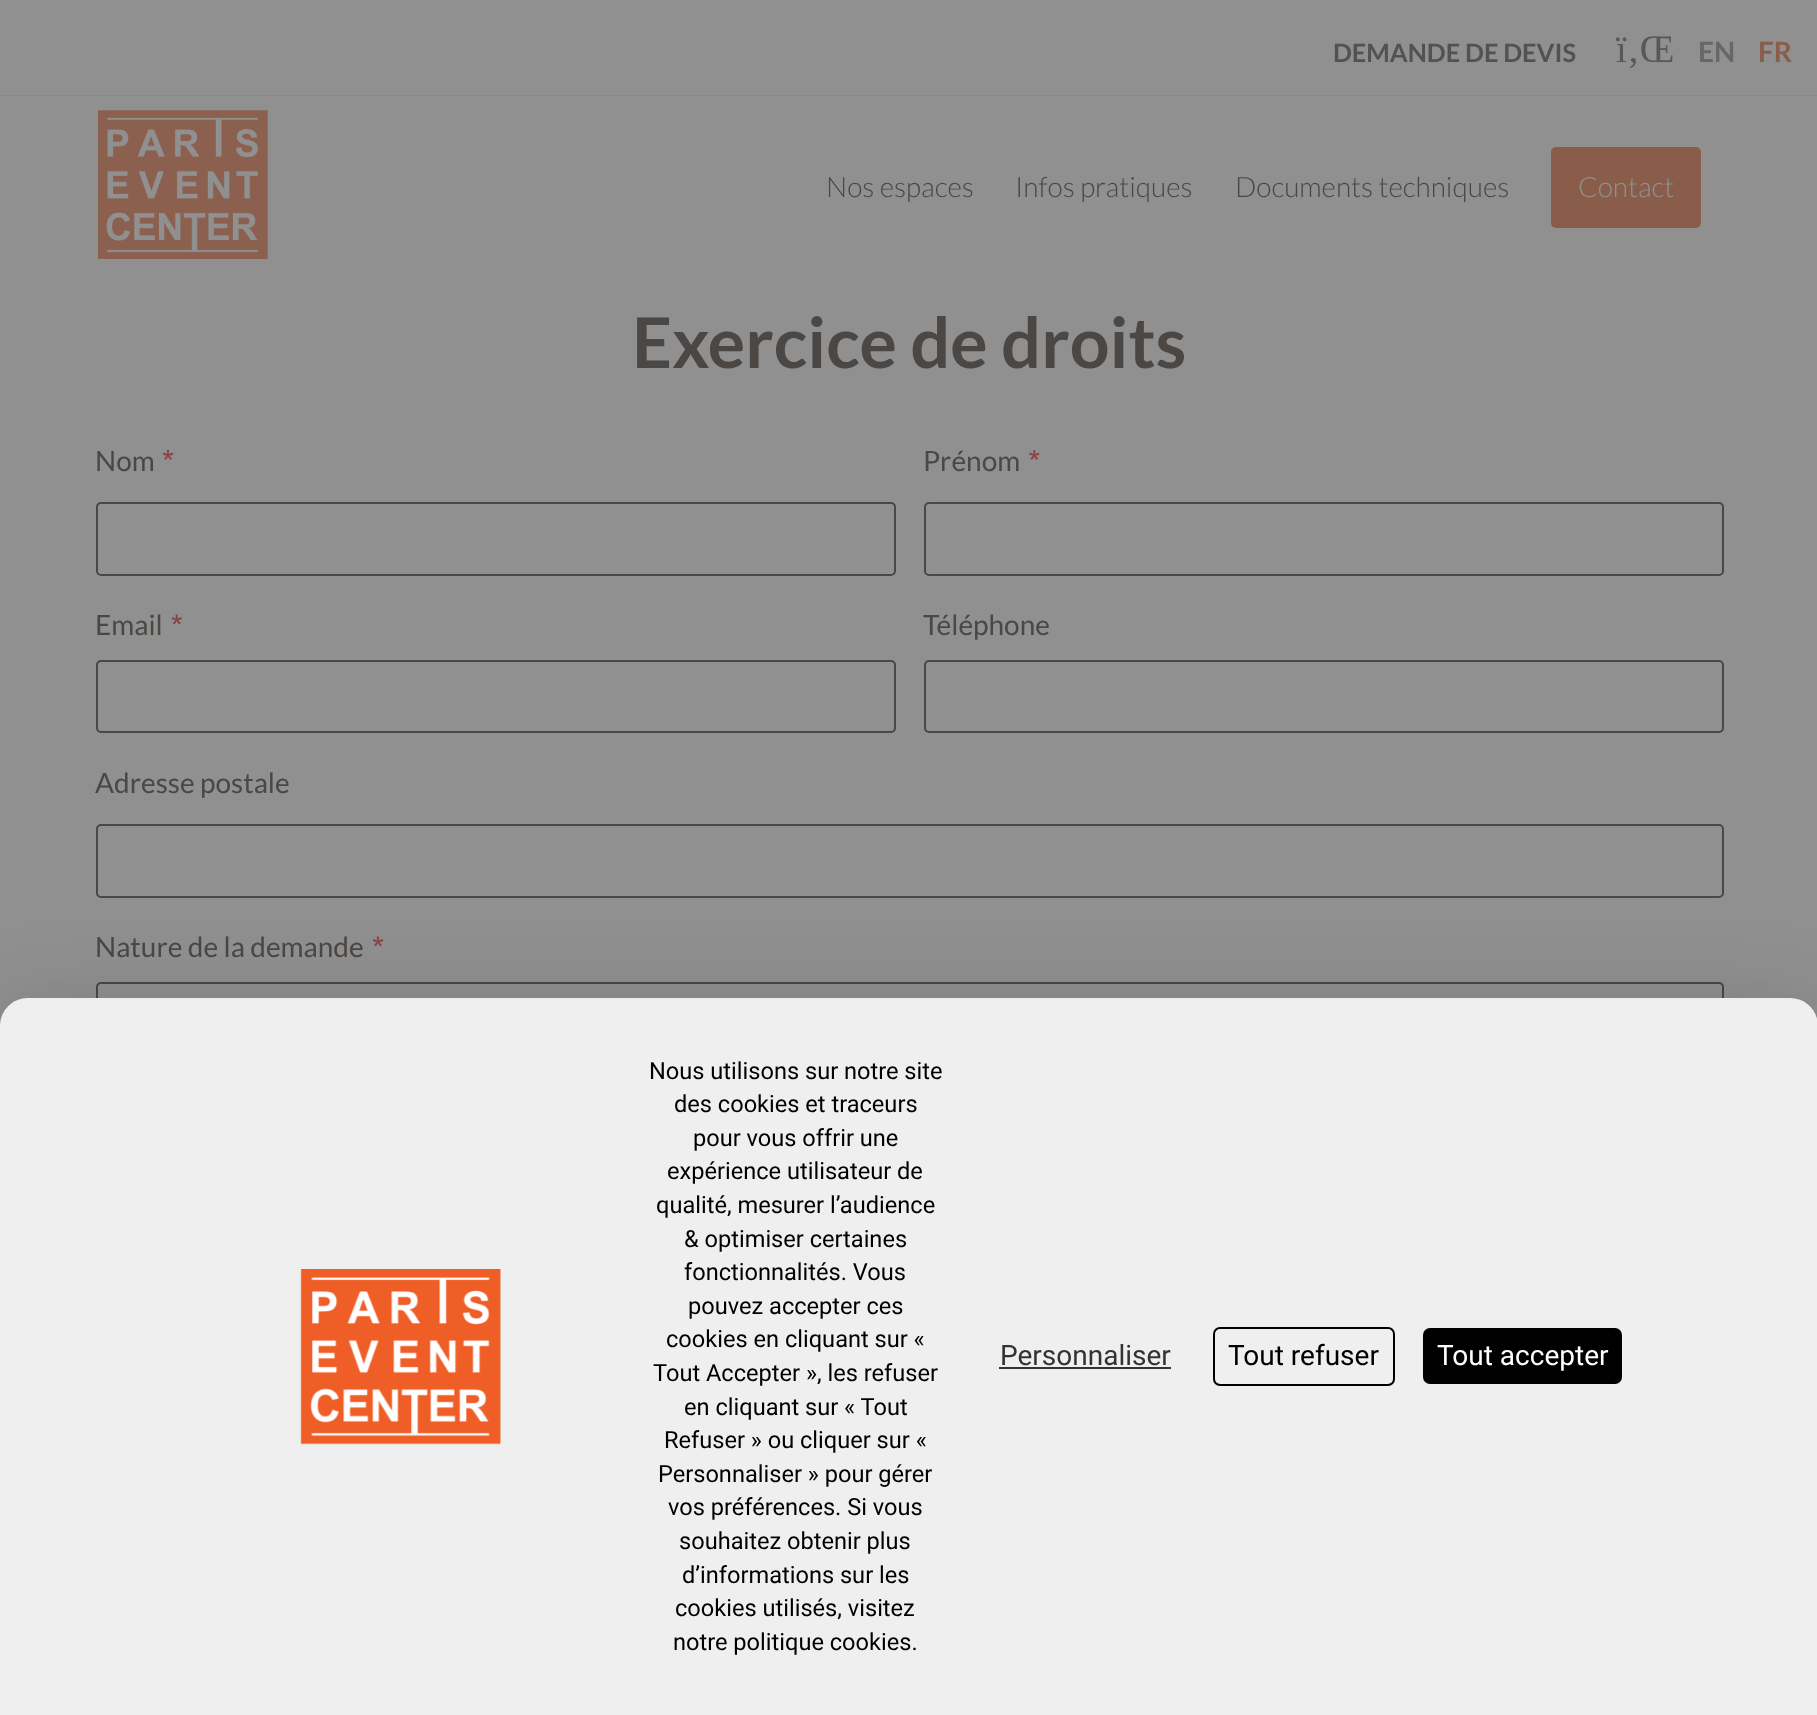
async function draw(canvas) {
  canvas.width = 1817;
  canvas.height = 1715;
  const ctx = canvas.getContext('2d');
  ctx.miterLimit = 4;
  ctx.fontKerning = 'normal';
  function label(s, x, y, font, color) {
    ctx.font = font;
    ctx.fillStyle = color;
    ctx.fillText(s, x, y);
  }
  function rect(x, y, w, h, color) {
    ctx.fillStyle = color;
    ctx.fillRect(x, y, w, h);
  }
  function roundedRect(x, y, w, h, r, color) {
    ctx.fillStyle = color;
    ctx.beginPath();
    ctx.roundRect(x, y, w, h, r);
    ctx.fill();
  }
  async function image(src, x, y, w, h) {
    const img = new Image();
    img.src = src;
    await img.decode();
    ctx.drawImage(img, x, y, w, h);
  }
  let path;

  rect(0, 0, 1817, 1715, '#909090');
  rect(0, 95, 1817, 1, '#87898b');
  label('DEMANDE DE DEVIS', 1333, 62, 'bold 25.25px Lato', '#545251');
  label('ï‚Œ', 1616, 62, '39px Liberation Serif', '#5a565c');
  label('EN', 1698, 62, 'bold 28px Lato', '#656869');
  label('FR', 1758, 62, 'bold 28px Lato', '#8a5d4a');
  await image('assets/img1.png', 98, 110, 170, 149);
  label('Nos espaces', 826, 197, '300 28px Lato', '#4b4744');
  label('Infos pratiques', 1015, 197, '300 28px Lato', '#4b4744');
  label('Documents techniques', 1235, 197, '300 28px Lato', '#4b4744');
  roundedRect(1551, 147, 150, 81, 5, '#8a5d4a');
  label('Contact', 1578, 197, '300 28px Lato', '#909090');
  label('Exercice de droits', 632, 368, 'bold 70px Lato', '#4b4744');
  label('Nom', 95, 471, '28px Lato', '#4b4744');
  await image('assets/img2.png', 163, 450, 10, 10);
  ctx.beginPath();
  ctx.roundRect(97, 503, 798, 72, 4);
  ctx.strokeStyle = '#4b4744';
  ctx.lineWidth = 2;
  ctx.stroke();
  label('Prénom', 923, 471, '28px Lato', '#4b4744');
  await image('assets/img3.png', 1029, 450, 11, 10);
  ctx.beginPath();
  ctx.roundRect(925, 503, 798, 72, 4);
  ctx.stroke();
  label('Email', 95, 635, '28px Lato', '#4b4744');
  await image('assets/img4.png', 172, 614, 10, 11);
  ctx.beginPath();
  ctx.roundRect(97, 661, 798, 71, 4);
  ctx.stroke();
  label('Téléphone', 923, 635, '28px Lato', '#4b4744');
  ctx.beginPath();
  ctx.roundRect(925, 661, 798, 71, 4);
  ctx.stroke();
  label('Adresse postale', 95, 793, '28px Lato', '#4b4744');
  ctx.beginPath();
  ctx.roundRect(97, 825, 1626, 72, 4);
  ctx.stroke();
  label('Nature de la demande', 95, 957, '28px Lato', '#4b4744');
  await image('assets/img5.png', 373, 936, 10, 11);
  ctx.beginPath();
  ctx.roundRect(97, 983, 1626, 66, 4);
  ctx.stroke();
  ctx.fillStyle = '#00000040';
  ctx.filter = 'blur(52.5px)';
  ctx.beginPath();
  ctx.roundRect(0, 1033, 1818, 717, 28);
  ctx.fill();
  ctx.filter = 'none';
  ctx.fillStyle = '#efefef';
  path = new Path2D('M28 998H1790C1805.5 998 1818 1010.5 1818 1026V1715H0V1026C0 1010.5 12.5 998 28 998Z');
  ctx.fill(path);
  await image('assets/img6.png', 300, 1269, 201, 176);
  label('Nous utilisons sur notre site', 649, 1079, '23.6px Roboto', '#000');
  label('des cookies et traceurs', 674, 1112, '23.6px Roboto', '#000');
  label('pour vous offrir une', 693, 1146, '23.6px Roboto', '#000');
  label('expérience utilisateur de', 667, 1179, '23.6px Roboto', '#000');
  label('qualité, mesurer l’audience', 656, 1213, '23.6px Roboto', '#000');
  label('& optimiser certaines', 684, 1247, '23.6px Roboto', '#000');
  label('fonctionnalités. Vous', 684, 1280, '23.6px Roboto', '#000');
  label('pouvez accepter ces', 688, 1314, '23.6px Roboto', '#000');
  label('cookies en cliquant sur «', 666, 1347, '23.6px Roboto', '#000');
  label('Tout Accepter », les refuser', 653, 1381, '23.6px Roboto', '#000');
  label('en cliquant sur « Tout', 684, 1415, '23.6px Roboto', '#000');
  label('Refuser » ou cliquer sur «', 664, 1448, '23.6px Roboto', '#000');
  label('Personnaliser » pour gérer', 658, 1482, '23.6px Roboto', '#000');
  label('vos préférences. Si vous', 668, 1515, '23.6px Roboto', '#000');
  label('souhaitez obtenir plus', 679, 1549, '23.6px Roboto', '#000');
  label('d’informations sur les', 682, 1583, '23.6px Roboto', '#000');
  label('cookies utilisés, visitez', 675, 1616, '23.6px Roboto', '#000');
  label('notre politique cookies.', 673, 1650, '23.6px Roboto', '#000');
  label('Personnaliser', 1000, 1365, '28px Roboto', '#333');
  rect(999, 1367, 172, 2, '#333');
  ctx.beginPath();
  ctx.roundRect(1214, 1328, 180, 57, 6);
  ctx.strokeStyle = '#000';
  ctx.stroke();
  label('Tout refuser', 1228, 1365, '28px Roboto', '#000');
  roundedRect(1423, 1328, 199, 56, 7, '#000');
  label('Tout accepter', 1437, 1365, '28px Roboto', '#fff');
}

draw(document.querySelector('canvas'));
